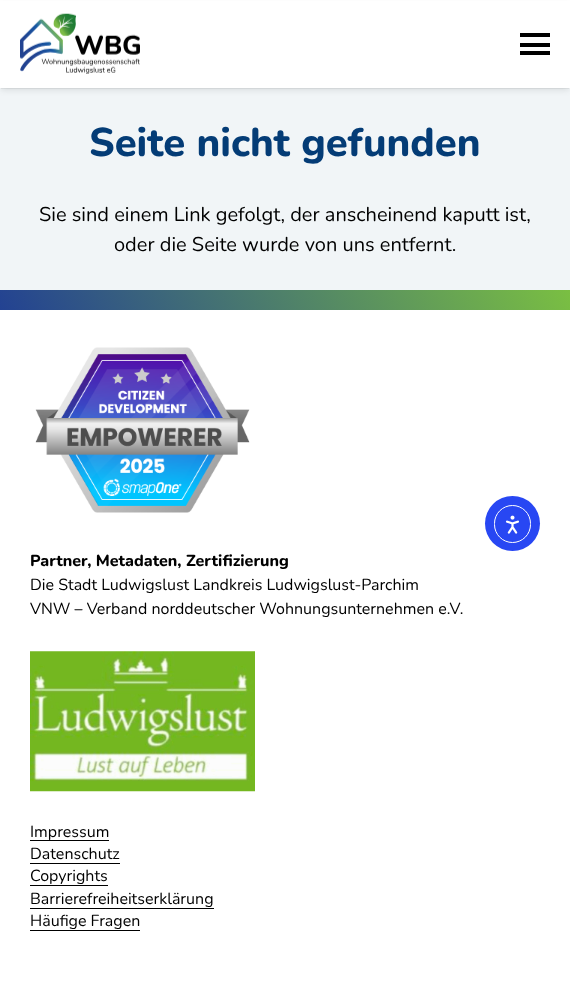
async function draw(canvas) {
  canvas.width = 570;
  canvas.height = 992;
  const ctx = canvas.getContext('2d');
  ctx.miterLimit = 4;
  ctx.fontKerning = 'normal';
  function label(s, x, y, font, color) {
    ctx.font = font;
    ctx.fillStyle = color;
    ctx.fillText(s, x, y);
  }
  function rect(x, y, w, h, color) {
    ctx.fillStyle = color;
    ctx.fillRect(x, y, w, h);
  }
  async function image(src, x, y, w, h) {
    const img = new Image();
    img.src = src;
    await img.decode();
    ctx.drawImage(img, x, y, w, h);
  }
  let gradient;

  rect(0, 0, 570, 992, '#fff');
  rect(0, 88, 570, 202, '#f1f5f7');
  ctx.fillStyle = '#0000000d';
  ctx.filter = 'blur(0.5px)';
  ctx.beginPath();
  ctx.rect(1, 4, 568, 85);
  ctx.fill();
  ctx.filter = 'none';
  ctx.fillStyle = '#0000001a';
  ctx.filter = 'blur(3px)';
  ctx.beginPath();
  ctx.rect(1, 5, 568, 85);
  ctx.fill();
  ctx.filter = 'none';
  rect(0, 1, 570, 87, '#fff');
  await image('assets/img1.png', 20, 13, 120, 61);
  rect(520, 43, 30, 4, '#000');
  rect(520, 33, 30, 4, '#000');
  rect(520, 51, 30, 4, '#000');
  label('Seite nicht gefunden', 89, 156, '200 40px Nunito', '#043c76');
  label('Sie sind einem Link gefolgt, der anscheinend kaputt ist,', 39, 221, '200 20px "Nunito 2"', '#000');
  label('oder die Seite wurde von uns entfernt.', 114, 251, '200 20px "Nunito 2"', '#000');
  ctx.fillStyle = '#2847f3';
  ctx.beginPath();
  ctx.arc(512.5, 523.5, 27.5, 0, 2 * Math.PI);
  ctx.fill();
  ctx.beginPath();
  ctx.roundRect(494.5, 505.5, 36, 37, 18);
  ctx.strokeStyle = '#fff';
  ctx.stroke();
  await image('assets/img2.png', 505, 515, 14, 19);
  gradient = ctx.createLinearGradient(67, 426, 503, 174);
  gradient.addColorStop(0, '#234292');
  gradient.addColorStop(1, '#7abf42');
  ctx.fillStyle = gradient;
  ctx.fillRect(0, 290, 570, 20);
  await image('assets/img3.png', 35, 347, 215, 166);
  label('Partner, Metadaten, Zertifizierung', 30, 566, '200 16px Nunito', '#000');
  label('Die Stadt Ludwigslust Landkreis Ludwigslust-Parchim', 30, 590, '200 16px "Nunito 2"', '#000');
  label('VNW – Verband norddeutscher Wohnungsunternehmen e.V.', 30, 614, '200 16px "Nunito 2"', '#000');
  await image('assets/img4.png', 30, 651, 225, 141);
  label('Impressum', 30, 837, '200 16px "Nunito 2"', '#000');
  rect(30, 840, 79, 1, '#000');
  label('Datenschutz', 30, 859, '200 16px "Nunito 2"', '#000');
  rect(30, 863, 90, 1, '#000');
  label('Copyrights', 30, 881, '200 16px "Nunito 2"', '#000');
  rect(30, 885, 78, 1, '#000');
  label('Barrierefreiheitserklärung', 30, 904, '200 16px "Nunito 2"', '#000');
  rect(30, 908, 184, 1, '#000');
  label('Häufige Fragen', 30, 926, '200 16px "Nunito 2"', '#000');
  rect(30, 930, 110, 1, '#000');
}

draw(document.querySelector('canvas'));
